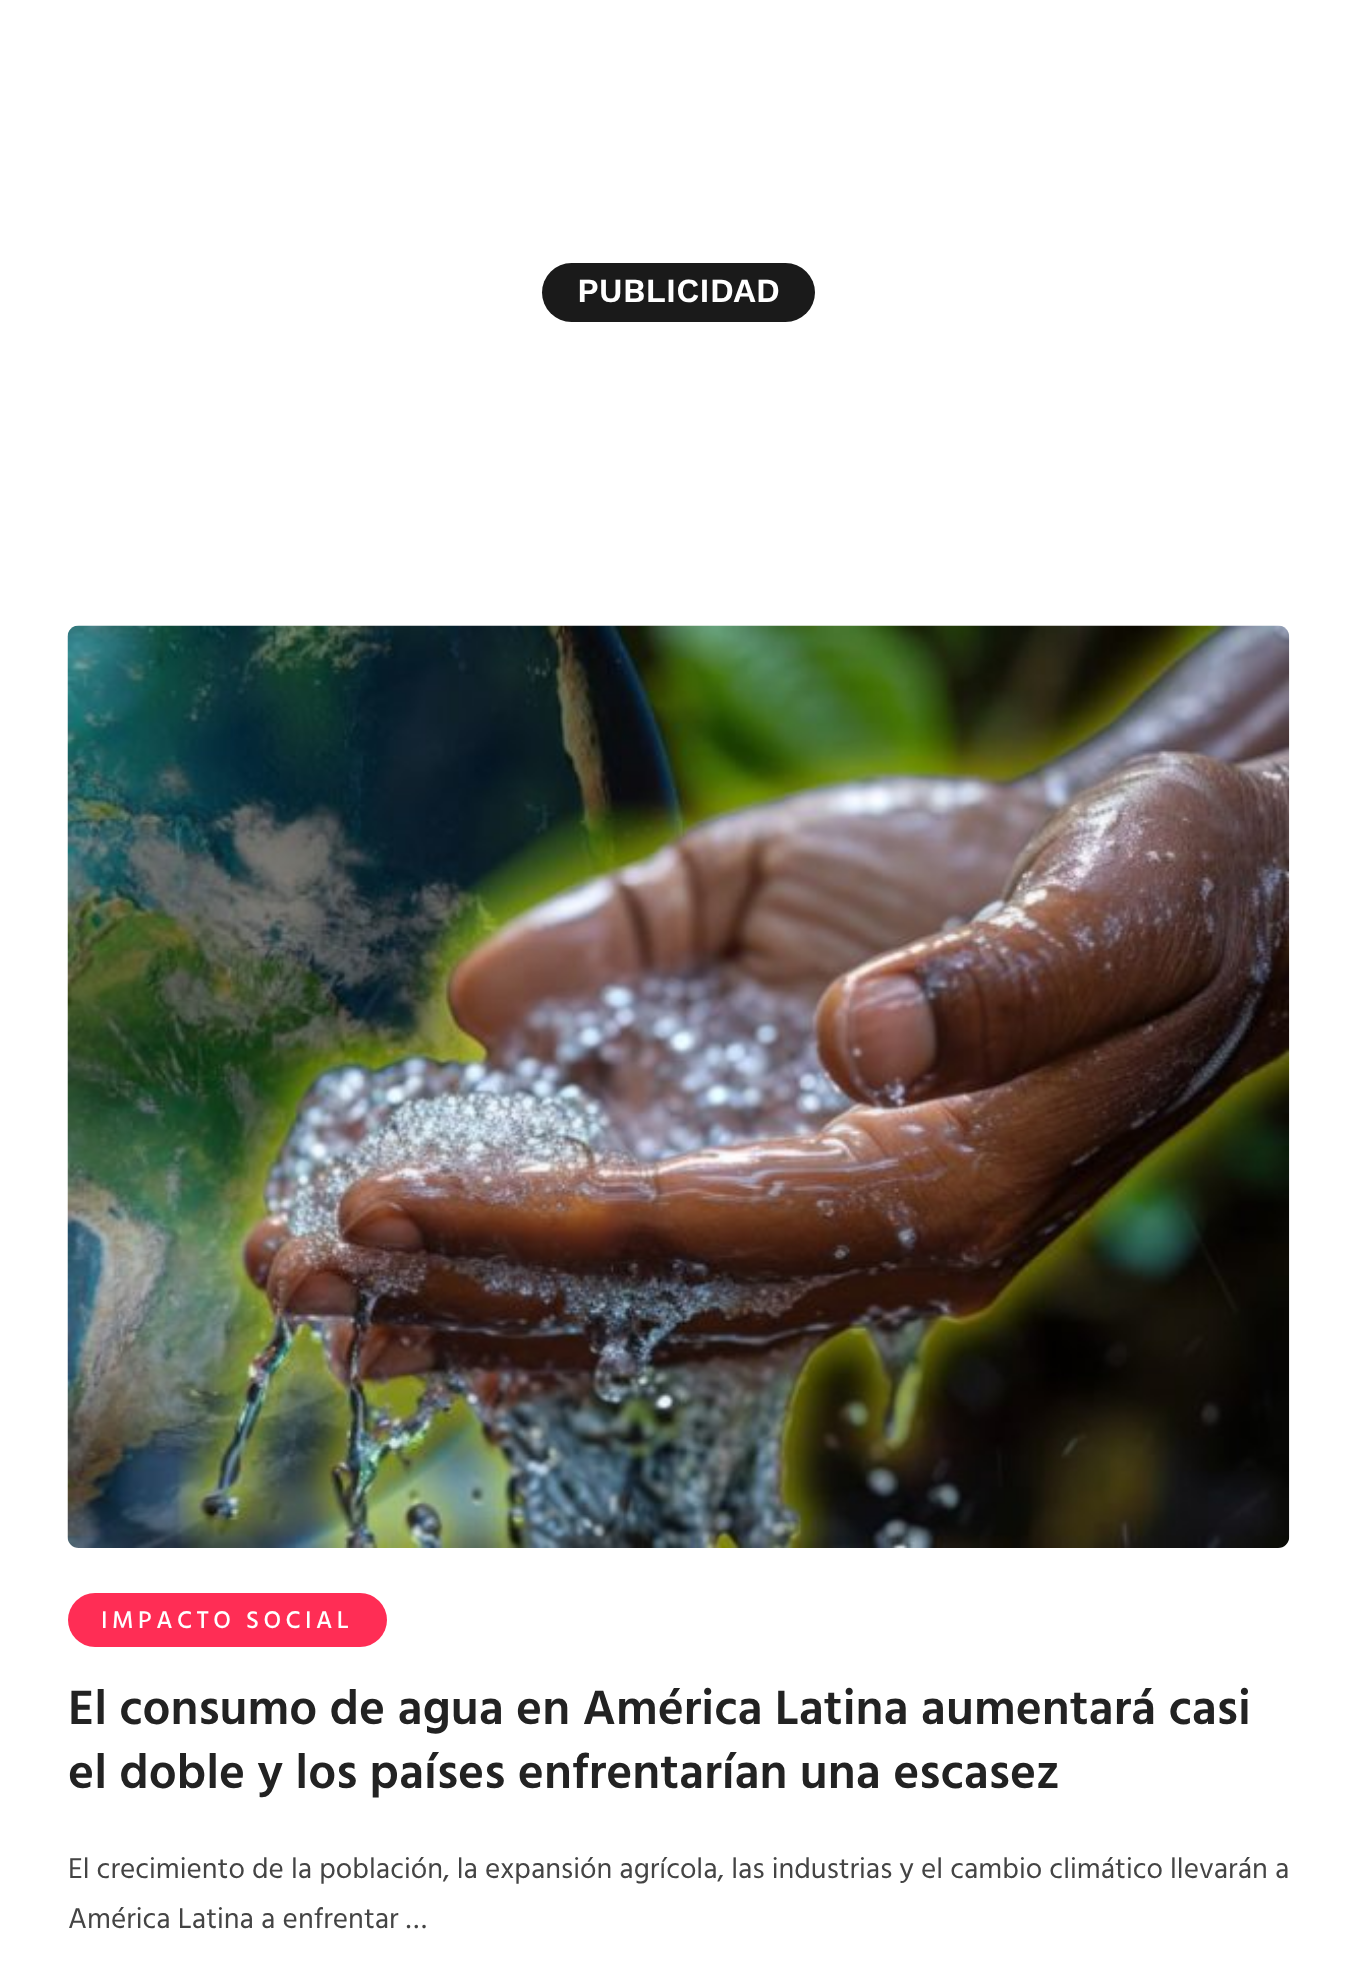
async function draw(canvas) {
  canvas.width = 1356;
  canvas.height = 1972;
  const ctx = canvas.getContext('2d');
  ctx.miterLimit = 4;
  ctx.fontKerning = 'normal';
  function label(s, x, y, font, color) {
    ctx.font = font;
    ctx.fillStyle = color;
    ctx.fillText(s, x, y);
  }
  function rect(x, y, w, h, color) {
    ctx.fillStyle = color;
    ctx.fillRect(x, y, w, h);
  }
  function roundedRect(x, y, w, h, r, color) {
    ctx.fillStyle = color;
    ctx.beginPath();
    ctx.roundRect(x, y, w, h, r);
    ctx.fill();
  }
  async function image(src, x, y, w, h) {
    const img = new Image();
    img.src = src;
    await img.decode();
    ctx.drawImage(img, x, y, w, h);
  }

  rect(0, 0, 1356, 1972, '#fff');
  roundedRect(542, 263, 273, 59, 29.5, '#1a1a1a');
  label('PUBLICIDAD', 577, 302, '600 33.75px Work Sans', '#fff');
  await image('assets/img1.png', 67, 625, 1223, 923);
  roundedRect(68, 1593, 319, 54, 27, '#ff2d55');
  ctx.letterSpacing = '4.5px';
  label('IMPACTO SOCIAL', 101, 1628, '500 24.75px Hind', '#fff');
  ctx.letterSpacing = '0px';
  label('El consumo de agua en América Latina aumentará casi', 68, 1724, '600 49.5px Hind', '#222');
  label('el doble y los países enfrentarían una escasez', 68, 1788, '600 49.5px Hind', '#222');
  label('El crecimiento de la población, la expansión agrícola, las industrias y el cambio climático llevarán a', 68, 1878, '29.25px Hind', '#444');
  label('América Latina a enfrentar …', 68, 1928, '29.25px Hind', '#444');
}

draw(document.querySelector('canvas'));
